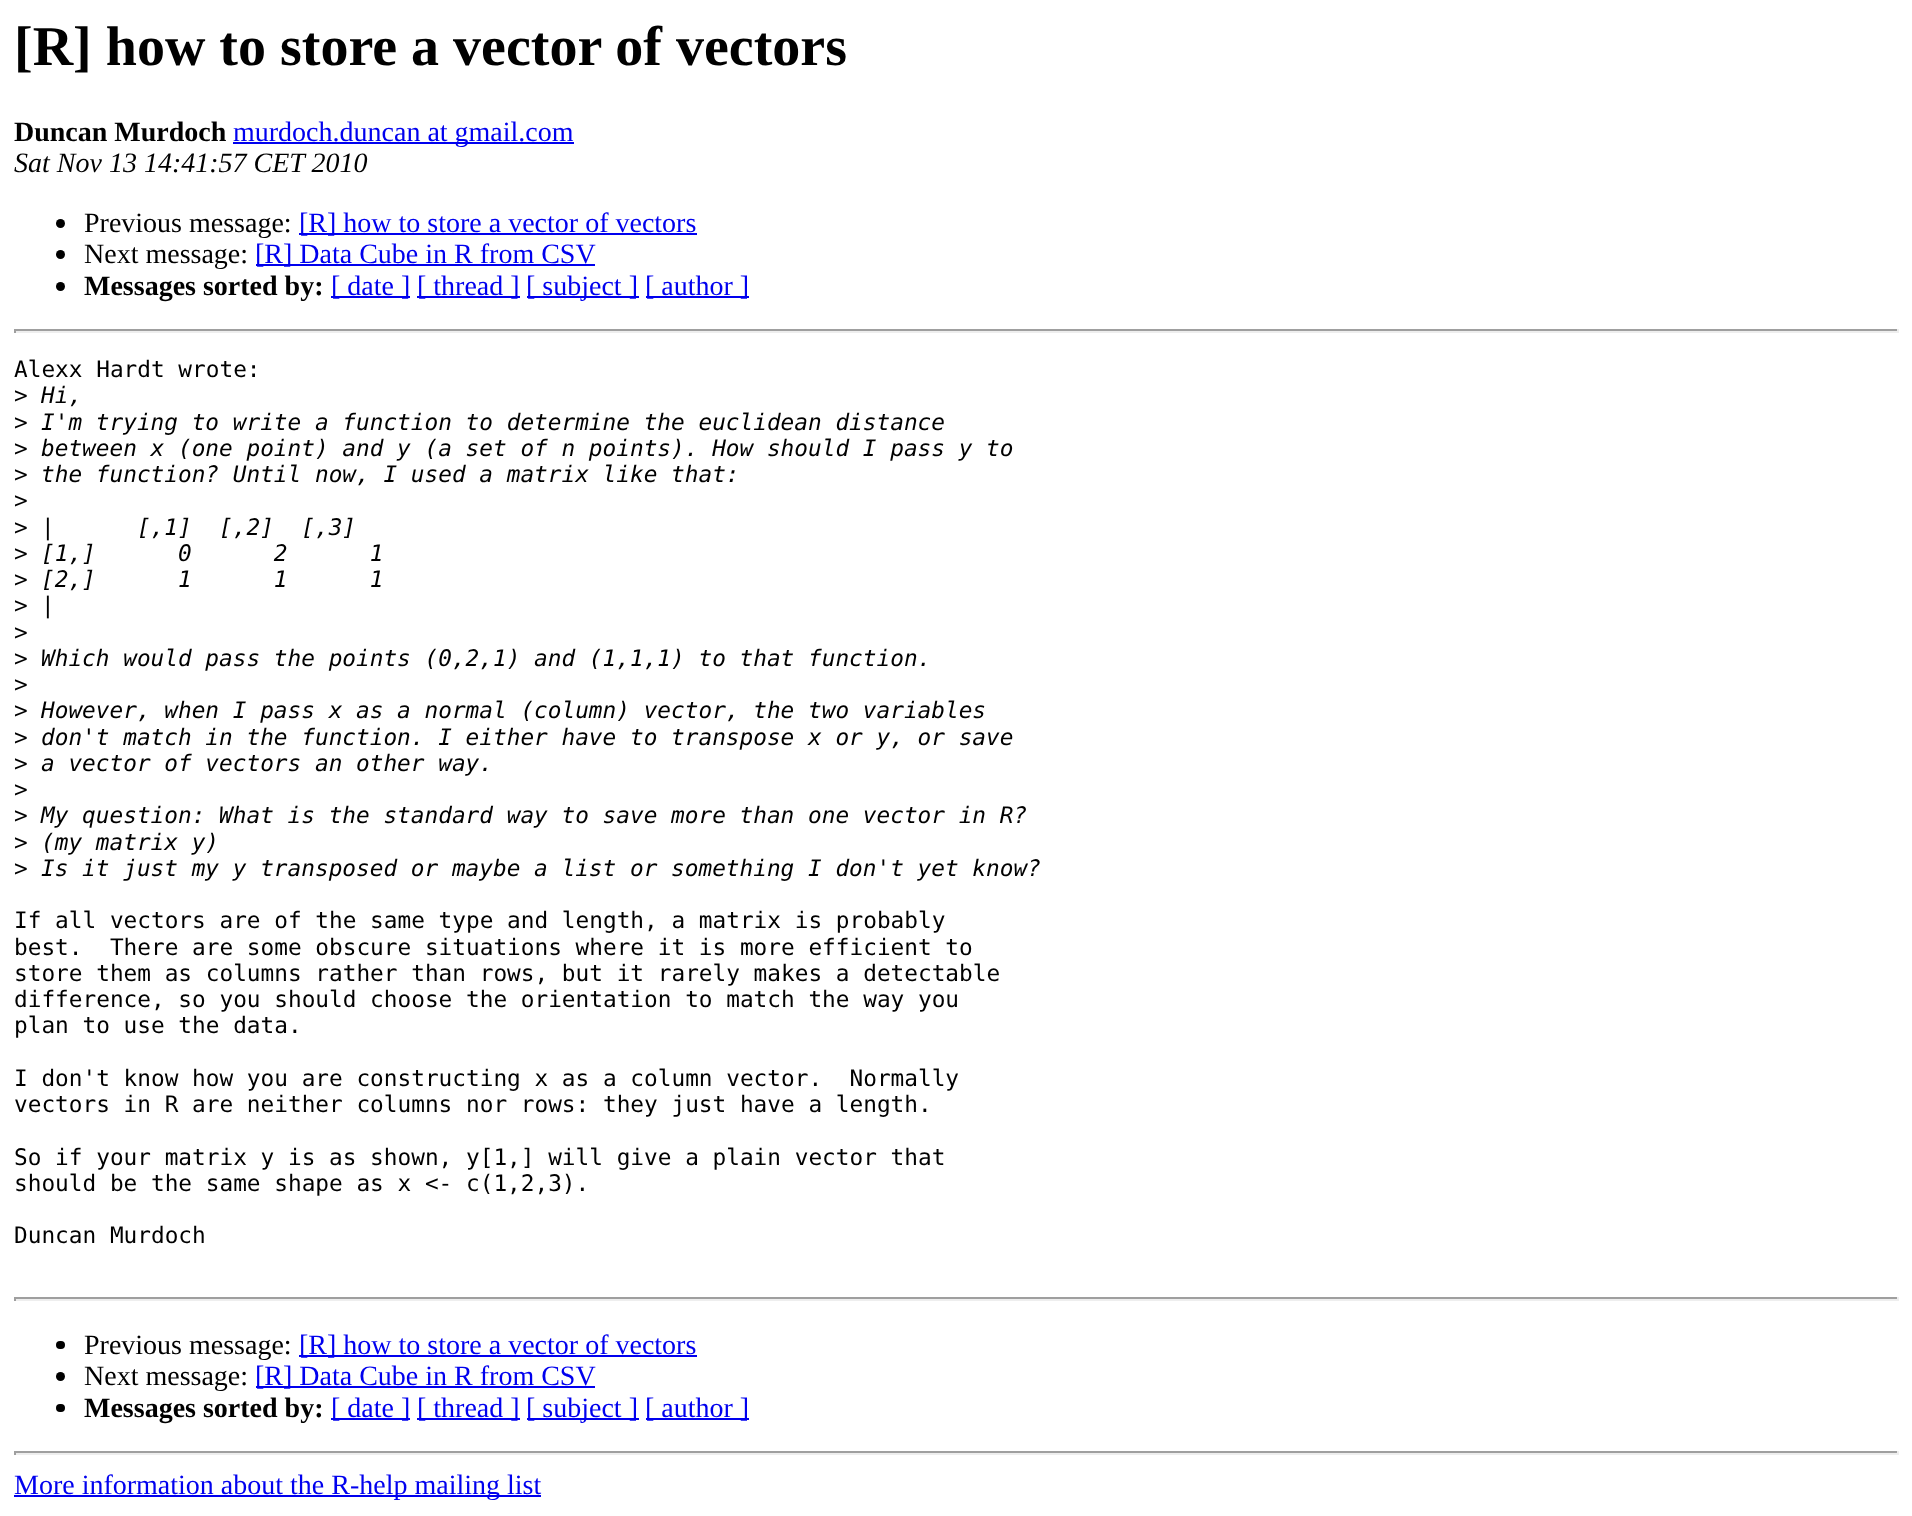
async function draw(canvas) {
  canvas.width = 1912;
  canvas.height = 1516;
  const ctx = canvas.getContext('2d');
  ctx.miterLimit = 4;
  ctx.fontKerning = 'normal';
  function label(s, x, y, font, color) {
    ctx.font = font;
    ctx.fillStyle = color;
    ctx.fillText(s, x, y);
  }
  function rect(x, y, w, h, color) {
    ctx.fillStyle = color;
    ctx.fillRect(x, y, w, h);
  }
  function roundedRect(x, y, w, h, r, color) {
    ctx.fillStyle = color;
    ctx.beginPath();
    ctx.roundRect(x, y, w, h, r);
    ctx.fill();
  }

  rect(0, 0, 1912, 1516, '#fff');
  label('[R] how to store a vector of vectors', 14, 65, 'bold 56px Liberation Serif', '#000');
  label('Duncan Murdoch', 14, 141, 'bold 28px Liberation Serif', '#000');
  rect(233, 142, 341, 2, '#00e');
  label('murdoch.duncan at gmail.com', 233, 141, '28px Liberation Serif', '#00e');
  label('Sat Nov 13 14:41:57 CET 2010', 14, 172, 'italic 28px Liberation Serif', '#000');
  ctx.beginPath();
  ctx.arc(60.5, 223.5, 4.5, 0, 2 * Math.PI);
  ctx.fill();
  label('Previous message:', 84, 232, '28px Liberation Serif', '#000');
  rect(299, 233, 398, 2, '#00e');
  label('[R] how to store a vector of vectors', 299, 232, '28px Liberation Serif', '#00e');
  ctx.fillStyle = '#000';
  ctx.beginPath();
  ctx.arc(60.5, 254.5, 4.5, 0, 2 * Math.PI);
  ctx.fill();
  label('Next message:', 84, 263, '28px Liberation Serif', '#000');
  rect(256, 264, 339, 2, '#00e');
  label('[R] Data Cube in R from CSV', 255, 263, '28px Liberation Serif', '#00e');
  ctx.fillStyle = '#000';
  ctx.beginPath();
  ctx.arc(60.5, 286.5, 4.5, 0, 2 * Math.PI);
  ctx.fill();
  label('Messages sorted by:', 84, 295, 'bold 28px Liberation Serif', '#000');
  rect(331, 296, 79, 2, '#00e');
  label('[ date ]', 331, 295, '28px Liberation Serif', '#00e');
  rect(417, 296, 103, 2, '#00e');
  label('[ thread ]', 417, 295, '28px Liberation Serif', '#00e');
  rect(527, 296, 112, 2, '#00e');
  label('[ subject ]', 526, 295, '28px Liberation Serif', '#00e');
  rect(646, 296, 103, 2, '#00e');
  label('[ author ]', 645, 295, '28px Liberation Serif', '#00e');
  rect(14, 329, 1885, 2, '#9f9f9f');
  rect(1897, 329, 2, 4, '#eee');
  rect(14, 331, 1885, 2, '#eee');
  rect(14, 329, 2, 4, '#9f9f9f');
  label('Alexx Hardt wrote:', 14, 377, '22.75px DejaVu Sans Mono', '#000');
  label('>', 14, 403, '22.75px DejaVu Sans Mono', '#000');
  label('Hi,', 41, 403, 'italic 22.75px DejaVu Sans Mono', '#000');
  label('>', 14, 430, '22.75px DejaVu Sans Mono', '#000');
  label('I\'m trying to write a function to determine the euclidean distance', 41, 430, 'italic 22.75px DejaVu Sans Mono', '#000');
  label('>', 14, 456, '22.75px DejaVu Sans Mono', '#000');
  label('between x (one point) and y (a set of n points). How should I pass y to', 41, 456, 'italic 22.75px DejaVu Sans Mono', '#000');
  label('>', 14, 482, '22.75px DejaVu Sans Mono', '#000');
  label('the function? Until now, I used a matrix like that:', 41, 482, 'italic 22.75px DejaVu Sans Mono', '#000');
  label('>', 14, 508, '22.75px DejaVu Sans Mono', '#000');
  label('>', 14, 535, '22.75px DejaVu Sans Mono', '#000');
  label('|      [,1]  [,2]  [,3]', 41, 535, 'italic 22.75px DejaVu Sans Mono', '#000');
  label('>', 14, 561, '22.75px DejaVu Sans Mono', '#000');
  label('[1,]      0      2      1', 41, 561, 'italic 22.75px DejaVu Sans Mono', '#000');
  label('>', 14, 587, '22.75px DejaVu Sans Mono', '#000');
  label('[2,]      1      1      1', 41, 587, 'italic 22.75px DejaVu Sans Mono', '#000');
  label('>', 14, 613, '22.75px DejaVu Sans Mono', '#000');
  label('|', 41, 613, 'italic 22.75px DejaVu Sans Mono', '#000');
  label('>', 14, 640, '22.75px DejaVu Sans Mono', '#000');
  label('>', 14, 666, '22.75px DejaVu Sans Mono', '#000');
  label('Which would pass the points (0,2,1) and (1,1,1) to that function.', 41, 666, 'italic 22.75px DejaVu Sans Mono', '#000');
  label('>', 14, 692, '22.75px DejaVu Sans Mono', '#000');
  label('>', 14, 718, '22.75px DejaVu Sans Mono', '#000');
  label('However, when I pass x as a normal (column) vector, the two variables', 41, 718, 'italic 22.75px DejaVu Sans Mono', '#000');
  label('>', 14, 745, '22.75px DejaVu Sans Mono', '#000');
  label('don\'t match in the function. I either have to transpose x or y, or save', 41, 745, 'italic 22.75px DejaVu Sans Mono', '#000');
  label('>', 14, 771, '22.75px DejaVu Sans Mono', '#000');
  label('a vector of vectors an other way.', 41, 771, 'italic 22.75px DejaVu Sans Mono', '#000');
  label('>', 14, 797, '22.75px DejaVu Sans Mono', '#000');
  label('>', 14, 823, '22.75px DejaVu Sans Mono', '#000');
  label('My question: What is the standard way to save more than one vector in R?', 41, 823, 'italic 22.75px DejaVu Sans Mono', '#000');
  label('>', 14, 850, '22.75px DejaVu Sans Mono', '#000');
  label('(my matrix y)', 41, 850, 'italic 22.75px DejaVu Sans Mono', '#000');
  label('>', 14, 876, '22.75px DejaVu Sans Mono', '#000');
  label('Is it just my y transposed or maybe a list or something I don\'t yet know?', 41, 876, 'italic 22.75px DejaVu Sans Mono', '#000');
  label('If all vectors are of the same type and length, a matrix is probably', 14, 928, '22.75px DejaVu Sans Mono', '#000');
  label('best.  There are some obscure situations where it is more efficient to', 14, 955, '22.75px DejaVu Sans Mono', '#000');
  label('store them as columns rather than rows, but it rarely makes a detectable', 14, 981, '22.75px DejaVu Sans Mono', '#000');
  label('difference, so you should choose the orientation to match the way you', 14, 1007, '22.75px DejaVu Sans Mono', '#000');
  label('plan to use the data.', 14, 1033, '22.75px DejaVu Sans Mono', '#000');
  label('I don\'t know how you are constructing x as a column vector.  Normally', 14, 1086, '22.75px DejaVu Sans Mono', '#000');
  label('vectors in R are neither columns nor rows: they just have a length.', 14, 1112, '22.75px DejaVu Sans Mono', '#000');
  label('So if your matrix y is as shown, y[1,] will give a plain vector that', 14, 1165, '22.75px DejaVu Sans Mono', '#000');
  label('should be the same shape as x <- c(1,2,3).', 14, 1191, '22.75px DejaVu Sans Mono', '#000');
  label('Duncan Murdoch', 14, 1243, '22.75px DejaVu Sans Mono', '#000');
  rect(14, 1297, 1885, 2, '#9f9f9f');
  rect(1897, 1297, 2, 4, '#eee');
  rect(14, 1299, 1885, 2, '#eee');
  rect(14, 1297, 2, 4, '#9f9f9f');
  roundedRect(56, 1341, 9, 8, 4, '#000');
  label('Previous message:', 84, 1354, '28px Liberation Serif', '#000');
  rect(299, 1355, 398, 2, '#00e');
  label('[R] how to store a vector of vectors', 299, 1354, '28px Liberation Serif', '#00e');
  ctx.fillStyle = '#000';
  ctx.beginPath();
  ctx.arc(60.5, 1376.5, 4.5, 0, 2 * Math.PI);
  ctx.fill();
  label('Next message:', 84, 1385, '28px Liberation Serif', '#000');
  rect(256, 1386, 339, 2, '#00e');
  label('[R] Data Cube in R from CSV', 255, 1385, '28px Liberation Serif', '#00e');
  roundedRect(56, 1404, 9, 8, 4, '#000');
  label('Messages sorted by:', 84, 1417, 'bold 28px Liberation Serif', '#000');
  rect(331, 1418, 79, 2, '#00e');
  label('[ date ]', 331, 1417, '28px Liberation Serif', '#00e');
  rect(417, 1418, 103, 2, '#00e');
  label('[ thread ]', 417, 1417, '28px Liberation Serif', '#00e');
  rect(527, 1418, 112, 2, '#00e');
  label('[ subject ]', 526, 1417, '28px Liberation Serif', '#00e');
  rect(646, 1418, 103, 2, '#00e');
  label('[ author ]', 645, 1417, '28px Liberation Serif', '#00e');
  rect(14, 1451, 1885, 2, '#9f9f9f');
  rect(1897, 1451, 2, 4, '#eee');
  rect(14, 1453, 1885, 2, '#eee');
  rect(14, 1451, 2, 4, '#9f9f9f');
  rect(14, 1495, 527, 2, '#00e');
  label('More information about the R-help mailing list', 14, 1494, '28px Liberation Serif', '#00e');
}

draw(document.querySelector('canvas'));
